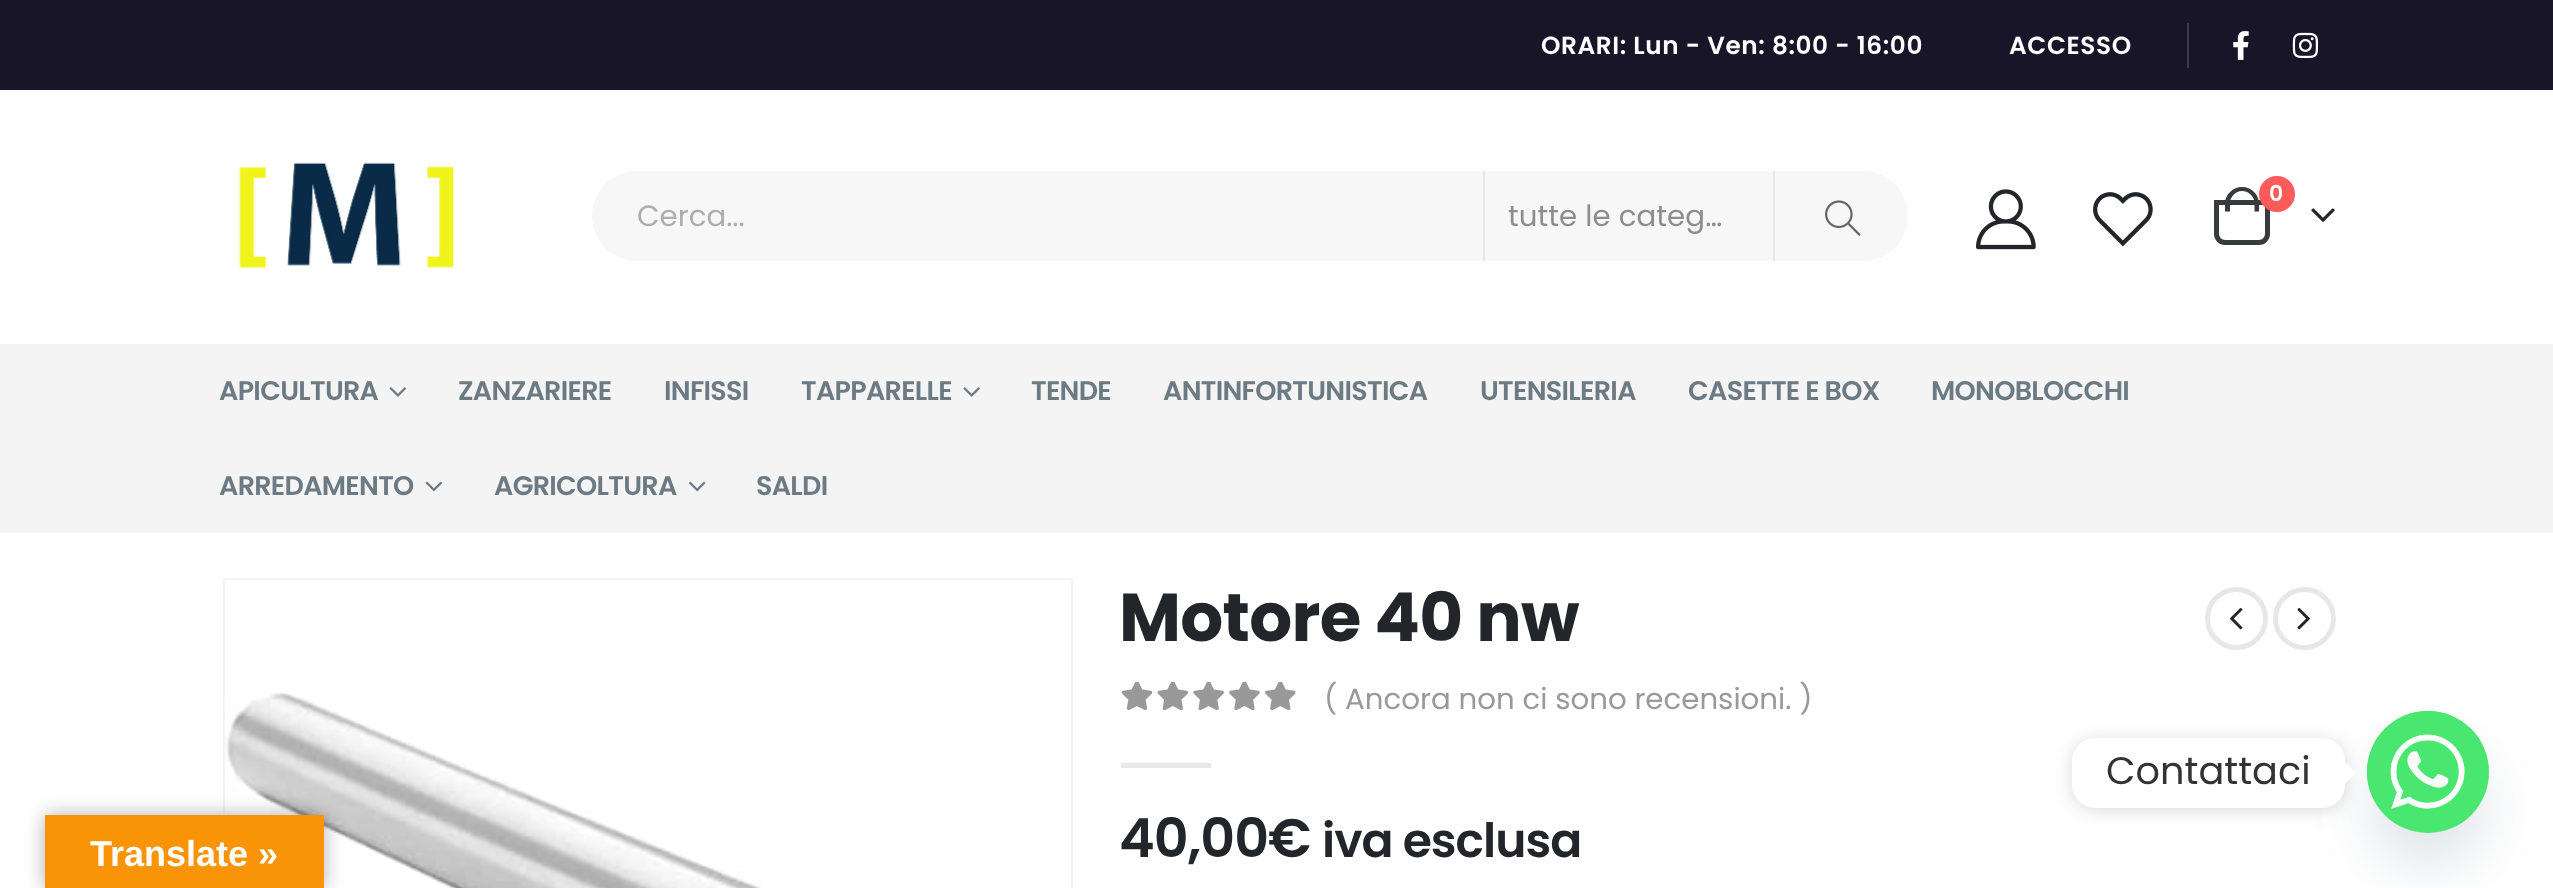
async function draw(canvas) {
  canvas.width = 2553;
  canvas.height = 888;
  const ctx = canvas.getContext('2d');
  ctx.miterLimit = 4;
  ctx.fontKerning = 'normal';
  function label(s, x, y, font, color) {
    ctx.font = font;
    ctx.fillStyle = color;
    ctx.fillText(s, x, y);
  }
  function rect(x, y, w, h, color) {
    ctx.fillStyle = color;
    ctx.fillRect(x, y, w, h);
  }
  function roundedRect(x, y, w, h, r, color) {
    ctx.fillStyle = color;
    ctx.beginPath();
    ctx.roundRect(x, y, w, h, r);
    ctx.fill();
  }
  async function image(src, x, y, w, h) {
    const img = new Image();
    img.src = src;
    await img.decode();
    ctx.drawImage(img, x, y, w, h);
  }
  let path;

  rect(0, 0, 2553, 888, '#fff');
  rect(0, 0, 2553, 90, '#191528');
  ctx.letterSpacing = '0.6px';
  label('ORARI: Lun - Ven: 8:00 - 16:00', 1541, 54, '600 24.75px Poppins', '#fff');
  label('ACCESSO', 2009, 54, '600 24.75px Poppins', '#fff');
  rect(2187, 23, 2, 45, '#3a3747');
  await image('assets/img1.png', 2233, 31, 16, 29);
  await image('assets/img2.png', 2292, 32, 26, 27);
  await image('assets/img3.png', 239, 162, 216, 108);
  await image('assets/img4.png', 1976, 189, 60, 61);
  await image('assets/img5.png', 2093, 192, 60, 55);
  ctx.beginPath();
  ctx.roundRect(2216.5, 202.5, 51, 40, [0, 0, 8.5, 8.5]);
  ctx.strokeStyle = '#383b3e';
  ctx.lineWidth = 5;
  ctx.stroke();
  ctx.fillStyle = '#383b3e';
  path = new Path2D('M2242 187C2251.5 187 2259 194.5 2259 203.5V211.5H2225V203.5C2225 194.5 2233 187 2242 187ZM2242 191C2249 191 2254.5 197 2254.5 203.5V211.5H2230V203.5C2230 197 2235.5 191 2242 191Z');
  ctx.fill(path, 'evenodd');
  ctx.fillStyle = '#ff5b5b';
  ctx.beginPath();
  ctx.arc(2277, 194, 18, 0, 2 * Math.PI);
  ctx.fill();
  ctx.letterSpacing = '0px';
  label('0', 2269, 201, '600 22px Poppins', '#fff');
  await image('assets/img6.png', 2311, 208, 24, 14);
  roundedRect(592, 171, 1316, 90, 45, '#f7f7f7');
  rect(1483, 171, 2, 90, '#e7e7e7');
  label('Cerca...', 637, 226, '29.25px Poppins', '#adadad');
  rect(1773, 171, 2, 90, '#e7e7e7');
  ctx.letterSpacing = '0.1px';
  label('tutte le categ…', 1508, 226, '29.25px Poppins', '#8d8d8d');
  await image('assets/img7.png', 1825, 200, 36, 36);
  rect(0, 344, 2553, 189, '#f4f4f4');
  ctx.letterSpacing = '-0.7px';
  label('APICULTURA', 219, 400, '600 27px Poppins', '#6b7a83');
  await image('assets/img8.png', 389, 387, 18, 10);
  label('ZANZARIERE', 458, 400, '600 27px Poppins', '#6b7a83');
  label('INFISSI', 664, 400, '600 27px Poppins', '#6b7a83');
  label('TAPPARELLE', 801, 400, '600 27px Poppins', '#6b7a83');
  await image('assets/img9.png', 963, 387, 17, 10);
  label('TENDE', 1031, 400, '600 27px Poppins', '#6b7a83');
  label('ANTINFORTUNISTICA', 1163, 400, '600 27px Poppins', '#6b7a83');
  label('UTENSILERIA', 1480, 400, '600 27px Poppins', '#6b7a83');
  label('CASETTE E BOX', 1688, 400, '600 27px Poppins', '#6b7a83');
  label('MONOBLOCCHI', 1931, 400, '600 27px Poppins', '#6b7a83');
  label('ARREDAMENTO', 219, 495, '600 27px Poppins', '#6b7a83');
  await image('assets/img10.png', 425, 481, 18, 11);
  label('AGRICOLTURA', 494, 495, '600 27px Poppins', '#6b7a83');
  await image('assets/img11.png', 689, 481, 17, 11);
  label('SALDI', 756, 495, '600 27px Poppins', '#6b7a83');
  ctx.strokeStyle = '#f4f4f4';
  ctx.lineWidth = 2;
  ctx.strokeRect(224, 579, 848, 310);
  await image('assets/img12.png', 226, 693, 535, 195);
  label('Motore 40 nw', 1119, 641, 'bold 67.5px Poppins', '#222529');
  ctx.beginPath();
  ctx.arc(2236.5, 618.5, 29, 0, 2 * Math.PI);
  ctx.strokeStyle = '#e7e7e7';
  ctx.lineWidth = 5;
  ctx.stroke();
  await image('assets/img13.png', 2230, 607, 13, 23);
  ctx.beginPath();
  ctx.arc(2304.5, 618.5, 29, 0, 2 * Math.PI);
  ctx.stroke();
  await image('assets/img14.png', 2297, 607, 13, 23);
  await image('assets/img15.png', 1121, 682, 175, 29);
  ctx.letterSpacing = '0px';
  label('( Ancora non ci sono recensioni. )', 1324, 709, '29.25px Poppins', '#999');
  rect(1121, 763, 90, 5, '#e7e7e7');
  ctx.letterSpacing = '-1px';
  label('40,00€', 1119, 857, '600 54px Poppins', '#222529');
  label('iva esclusa', 1322, 857, '600 47.25px Poppins', '#222529');
  ctx.fillStyle = '#49687e29';
  ctx.filter = 'blur(27px)';
  ctx.beginPath();
  ctx.roundRect(2367, 747, 122, 122, 61);
  ctx.fill();
  ctx.filter = 'none';
  ctx.fillStyle = '#49e670';
  ctx.beginPath();
  ctx.arc(2428, 772, 61, 0, 2 * Math.PI);
  ctx.fill();
  await image('assets/img16.png', 2367, 711, 110, 110);
  ctx.fillStyle = '#00000026';
  ctx.filter = 'blur(8.5px)';
  ctx.beginPath();
  ctx.roundRect(2072, 740, 273, 70, 23);
  ctx.fill();
  ctx.filter = 'none';
  roundedRect(2072, 738, 273, 70, 23, '#fff');
  ctx.letterSpacing = '0px';
  label('Contattaci', 2106, 784, '38.25px Poppins', '#333');
  ctx.fillStyle = '#fff';
  path = new Path2D('M2344.5 784V761.5L2356 773Z');
  ctx.fill(path);
  ctx.fillStyle = '#0000004d';
  ctx.filter = 'blur(10px)';
  ctx.beginPath();
  ctx.rect(45, 815, 279, 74);
  ctx.fill();
  ctx.filter = 'none';
  rect(45, 815, 279, 73, '#f89406');
  label('Translate »', 90, 866, 'bold 36px Liberation Sans', '#fff');
}

draw(document.querySelector('canvas'));
